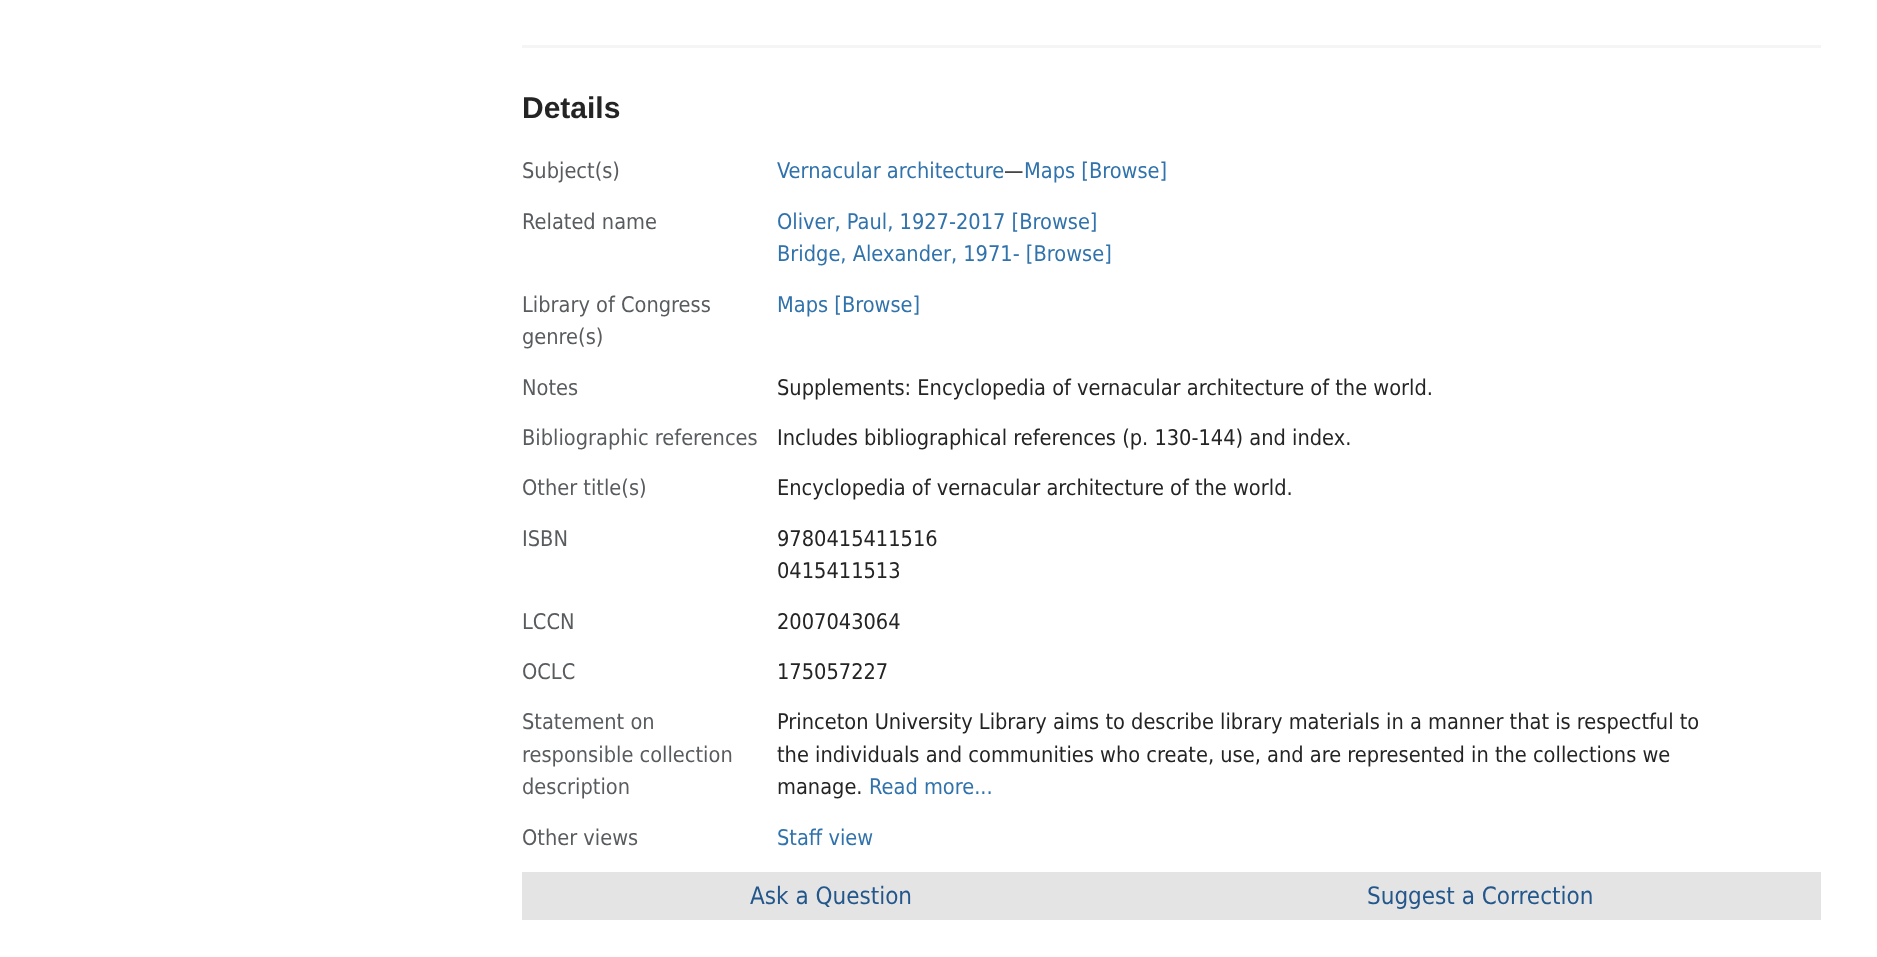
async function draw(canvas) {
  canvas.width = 1877;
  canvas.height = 957;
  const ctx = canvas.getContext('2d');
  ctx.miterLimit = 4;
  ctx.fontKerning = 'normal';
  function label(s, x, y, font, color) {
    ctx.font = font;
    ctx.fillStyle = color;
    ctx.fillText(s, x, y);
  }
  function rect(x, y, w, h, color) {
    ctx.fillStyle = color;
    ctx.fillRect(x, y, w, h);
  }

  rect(0, 0, 1877, 957, '#fff');
  rect(522, 45, 1299, 3, '#f5f5f5');
  label('Details', 522, 118, 'bold 30px Liberation Sans', '#242424');
  label('Subject(s)', 522, 178, '21.6px DejaVu Sans', '#595c5f');
  label('Vernacular architecture', 777, 178, '21.6px DejaVu Sans', '#3072ab');
  label('—', 1004, 178, '21.6px DejaVu Sans', '#242424');
  label('Maps [Browse]', 1024, 178, '21.6px DejaVu Sans', '#3072ab');
  label('Related name', 522, 229, '21.6px DejaVu Sans', '#595c5f');
  label('Oliver, Paul, 1927-2017 [Browse]', 777, 229, '21.6px DejaVu Sans', '#3072ab');
  label('Bridge, Alexander, 1971- [Browse]', 777, 261, '21.6px DejaVu Sans', '#3072ab');
  label('Library of Congress', 522, 312, '21.6px DejaVu Sans', '#595c5f');
  label('genre(s)', 522, 344, '21.6px DejaVu Sans', '#595c5f');
  label('Maps [Browse]', 777, 312, '21.6px DejaVu Sans', '#3072ab');
  label('Notes', 522, 395, '21.6px DejaVu Sans', '#595c5f');
  label('Supplements: Encyclopedia of vernacular architecture of the world.', 777, 395, '21.6px DejaVu Sans', '#242424');
  label('Bibliographic references', 522, 445, '21.6px DejaVu Sans', '#595c5f');
  label('Includes bibliographical references (p. 130-144) and index.', 777, 445, '21.6px DejaVu Sans', '#242424');
  label('Other title(s)', 522, 495, '21.6px DejaVu Sans', '#595c5f');
  label('Encyclopedia of vernacular architecture of the world.', 777, 495, '21.6px DejaVu Sans', '#242424');
  label('ISBN', 522, 546, '21.6px DejaVu Sans', '#595c5f');
  label('9780415411516', 777, 546, '21.6px DejaVu Sans', '#242424');
  label('0415411513', 777, 578, '21.6px DejaVu Sans', '#242424');
  label('LCCN', 522, 629, '21.6px DejaVu Sans', '#595c5f');
  label('2007043064', 777, 629, '21.6px DejaVu Sans', '#242424');
  label('OCLC', 522, 679, '21.6px DejaVu Sans', '#595c5f');
  label('175057227', 777, 679, '21.6px DejaVu Sans', '#242424');
  label('Statement on', 522, 729, '21.6px DejaVu Sans', '#595c5f');
  label('responsible collection', 522, 762, '21.6px DejaVu Sans', '#595c5f');
  label('description', 522, 794, '21.6px DejaVu Sans', '#595c5f');
  label('Princeton University Library aims to describe library materials in a manner that is respectful to', 777, 729, '21.6px DejaVu Sans', '#242424');
  label('the individuals and communities who create, use, and are represented in the collections we', 777, 762, '21.6px DejaVu Sans', '#242424');
  label('manage.', 777, 794, '21.6px DejaVu Sans', '#242424');
  label('Read more...', 869, 794, '21.6px DejaVu Sans', '#3072ab');
  label('Other views', 522, 845, '21.6px DejaVu Sans', '#595c5f');
  label('Staff view', 777, 845, '21.6px DejaVu Sans', '#3072ab');
  rect(522, 872, 1299, 48, '#e4e4e4');
  label('Ask a Question', 750, 904, '24px DejaVu Sans', '#23578b');
  label('Suggest a Correction', 1367, 904, '24px DejaVu Sans', '#23578b');
}

draw(document.querySelector('canvas'));
